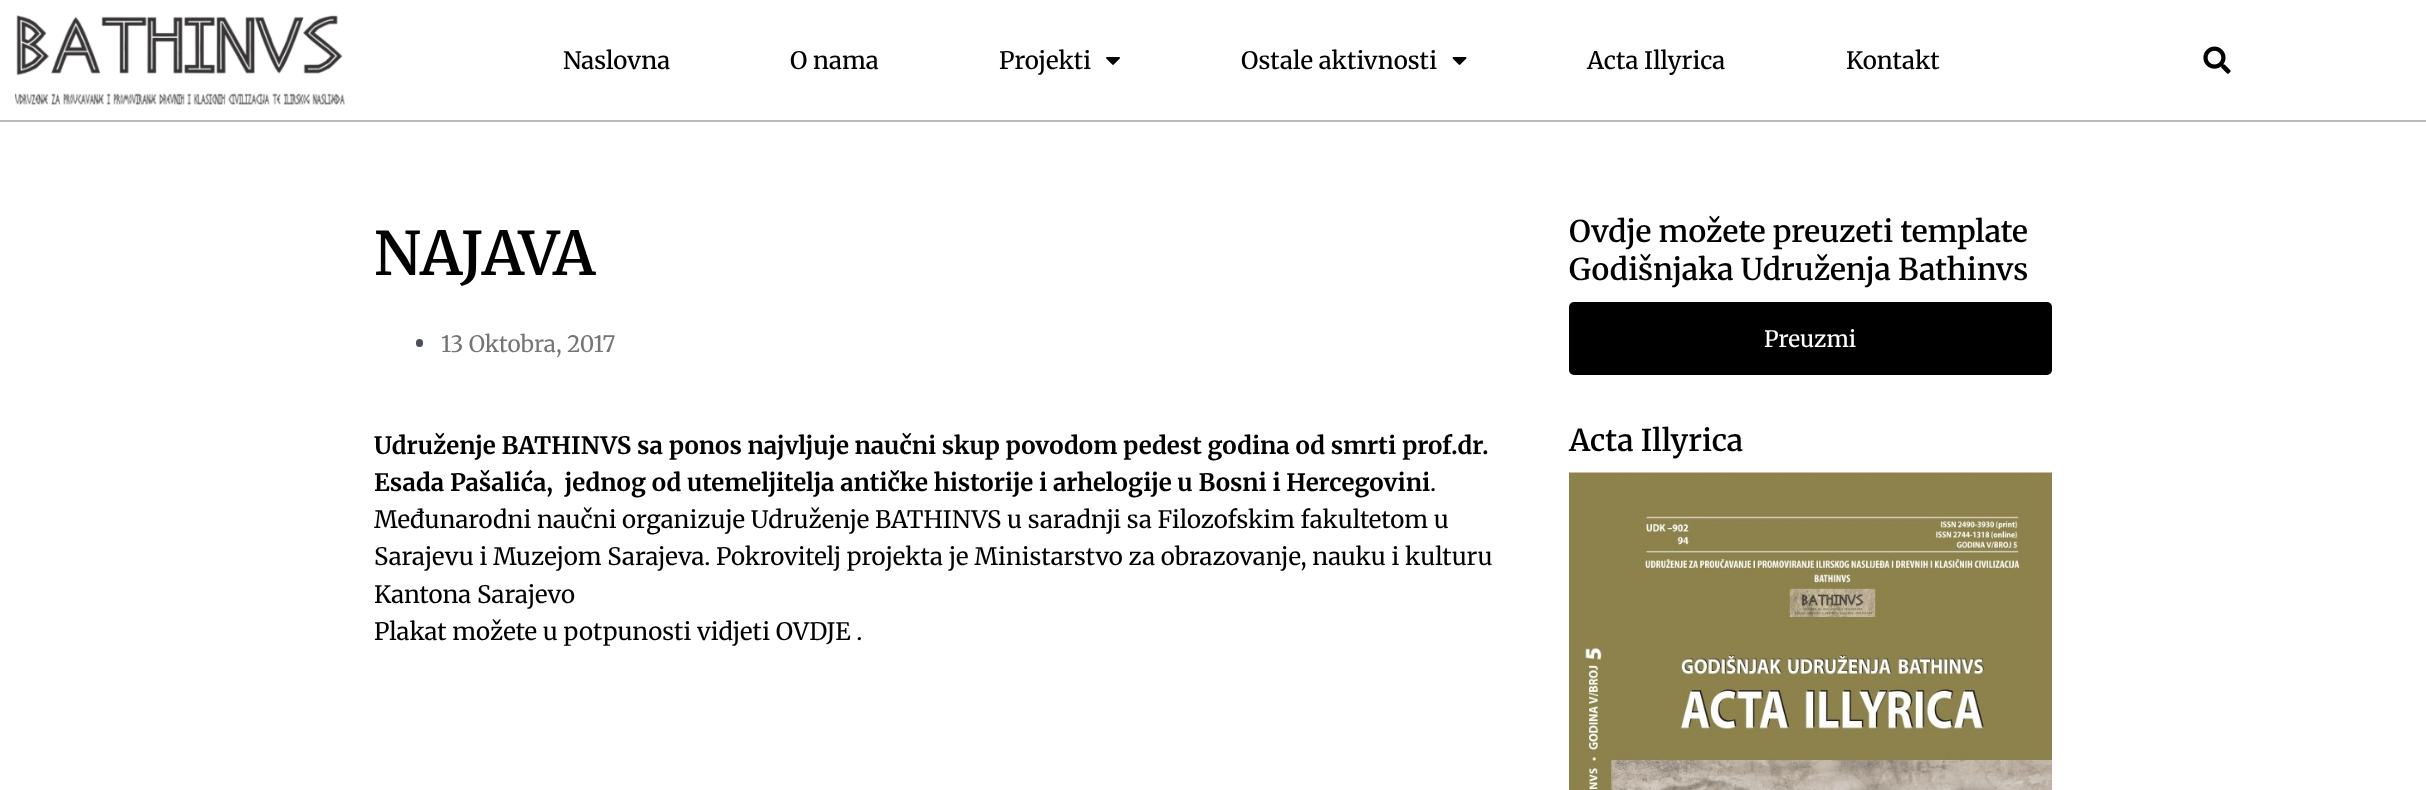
async function draw(canvas) {
  canvas.width = 2426;
  canvas.height = 790;
  const ctx = canvas.getContext('2d');
  ctx.miterLimit = 4;
  ctx.fontKerning = 'normal';
  function label(s, x, y, font, color) {
    ctx.font = font;
    ctx.fillStyle = color;
    ctx.fillText(s, x, y);
  }
  function rect(x, y, w, h, color) {
    ctx.fillStyle = color;
    ctx.fillRect(x, y, w, h);
  }
  function roundedRect(x, y, w, h, r, color) {
    ctx.fillStyle = color;
    ctx.beginPath();
    ctx.roundRect(x, y, w, h, r);
    ctx.fill();
  }
  async function image(src, x, y, w, h) {
    const img = new Image();
    img.src = src;
    await img.decode();
    ctx.drawImage(img, x, y, w, h);
  }

  rect(0, 0, 2426, 790, '#fff');
  rect(0, 120, 2426, 2, '#bcbcbc');
  await image('assets/img1.png', 15, 15, 330, 90);
  label('Naslovna', 563, 69, '500 24px Merriweather', '#000');
  label('O nama', 790, 69, '500 24px Merriweather', '#000');
  label('Projekti', 999, 69, '500 24px Merriweather', '#000');
  await image('assets/img2.png', 1106, 57, 14, 8);
  label('Ostale aktivnosti', 1241, 69, '500 24px Merriweather', '#000');
  await image('assets/img3.png', 1452, 57, 15, 8);
  label('Acta Illyrica', 1587, 69, '500 24px Merriweather', '#000');
  label('Kontakt', 1846, 69, '500 24px Merriweather', '#000');
  await image('assets/img4.png', 2203, 46, 28, 28);
  label('NAJAVA', 374, 275, '600 60px Merriweather', '#000');
  roundedRect(416, 339, 7, 8, 3.5, '#4b4f58');
  label('13 Oktobra, 2017', 441, 352, '22.5px Merriweather', '#757575');
  label('Udruženje BATHINVS sa ponos najvljuje naučni skup povodom pedest godina od smrti prof.dr.', 374, 454, 'bold 24px Merriweather', '#000');
  label('Esada Pašalića,  jednog od utemeljitelja antičke historije i arhelogije u Bosni i Hercegovini', 374, 491, 'bold 24px Merriweather', '#000');
  label('.', 1430, 491, '24px Merriweather', '#000');
  label('Međunarodni naučni organizuje Udruženje BATHINVS u saradnji sa Filozofskim fakultetom u', 374, 528, '24px Merriweather', '#000');
  label('Sarajevu i Muzejom Sarajeva. Pokrovitelj projekta je Ministarstvo za obrazovanje, nauku i kulturu', 374, 565, '24px Merriweather', '#000');
  label('Kantona Sarajevo', 374, 603, '24px Merriweather', '#000');
  label('Plakat možete u potpunosti vidjeti OVDJE .', 374, 640, '24px Merriweather', '#000');
  label('Ovdje možete preuzeti template', 1569, 242, '600 30px Merriweather', '#000');
  label('Godišnjaka Udruženja Bathinvs', 1569, 280, '600 30px Merriweather', '#000');
  roundedRect(1569, 302, 483, 73, 5, '#000');
  label('Preuzmi', 1764, 347, '500 22.5px Merriweather', '#fff');
  label('Acta Illyrica', 1569, 451, '600 30px Merriweather', '#000');
  await image('assets/img5.png', 1569, 472, 483, 318);
}

draw(document.querySelector('canvas'));
